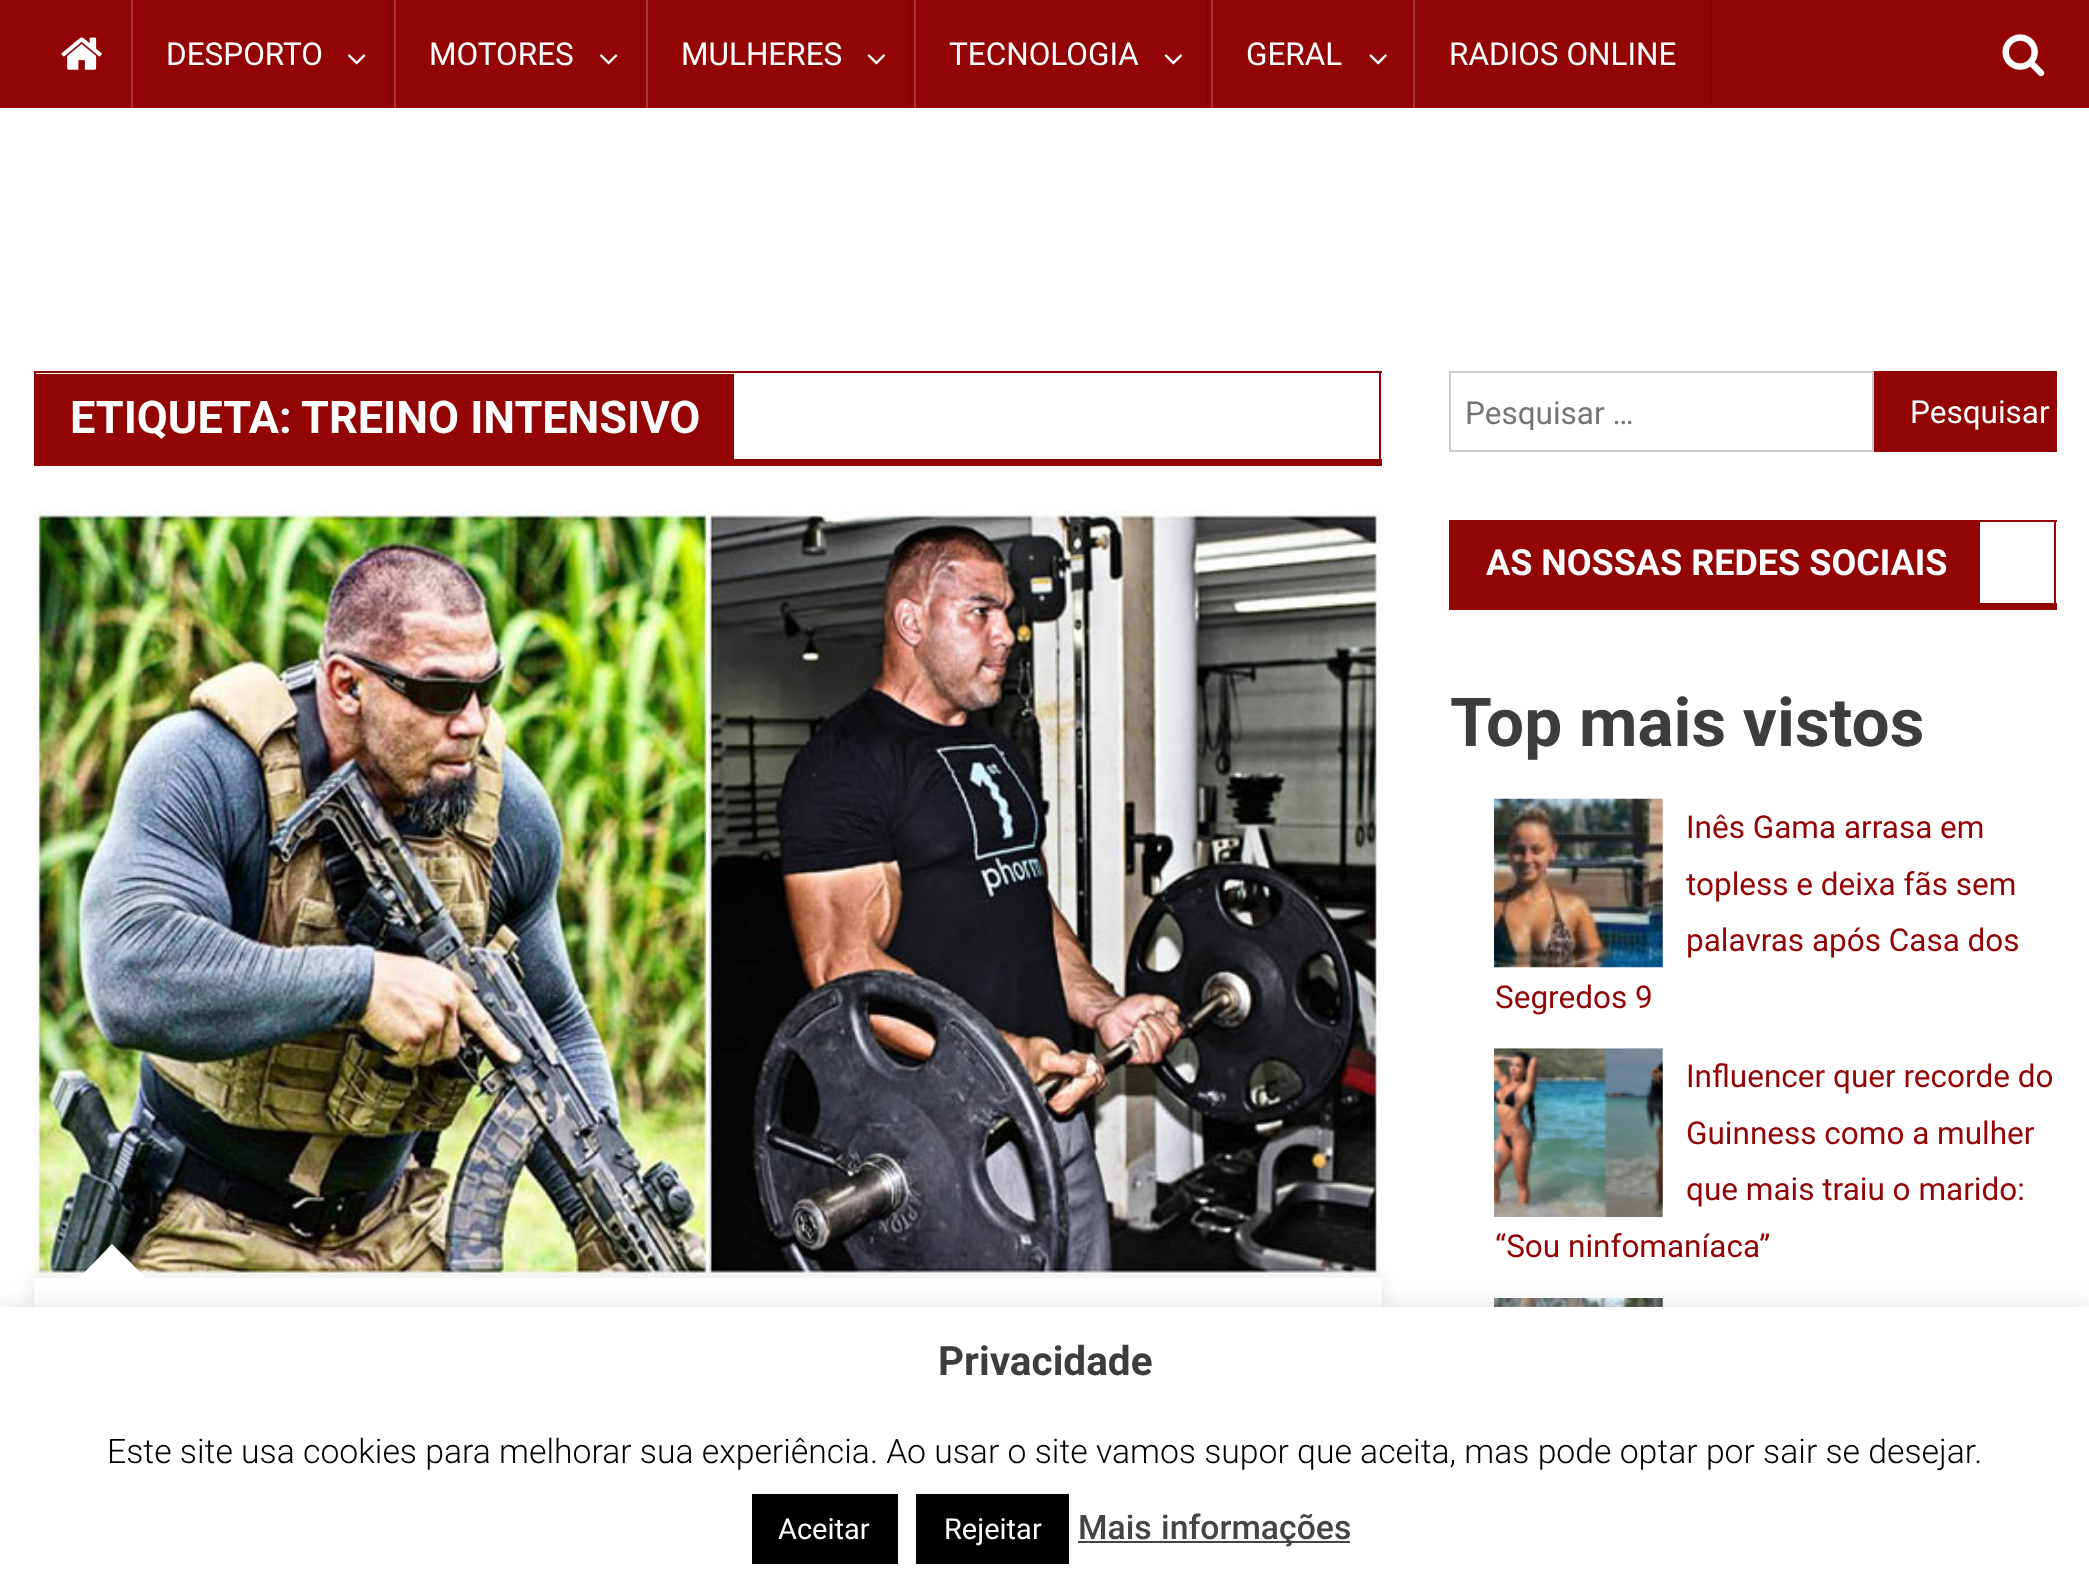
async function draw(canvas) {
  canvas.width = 2089;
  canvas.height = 1589;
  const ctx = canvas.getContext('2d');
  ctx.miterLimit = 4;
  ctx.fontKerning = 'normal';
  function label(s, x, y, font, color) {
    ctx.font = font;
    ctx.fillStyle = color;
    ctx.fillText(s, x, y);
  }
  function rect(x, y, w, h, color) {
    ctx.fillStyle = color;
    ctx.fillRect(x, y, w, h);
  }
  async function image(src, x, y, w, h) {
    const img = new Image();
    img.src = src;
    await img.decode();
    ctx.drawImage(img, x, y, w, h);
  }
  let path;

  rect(0, 0, 2089, 1589, '#fff');
  rect(0, 0, 2089, 108, '#930404');
  await image('assets/img1.png', 61, 37, 41, 33);
  rect(389, 0, 2, 108, '#870404');
  rect(131, 0, 2, 108, '#a93636');
  label('DESPORTO', 166, 65, '31.5px Roboto', '#fff');
  await image('assets/img2.png', 347, 54, 19, 11);
  rect(641, 0, 2, 108, '#870404');
  rect(394, 0, 2, 108, '#a93636');
  label('MOTORES', 429, 65, '31.5px Roboto', '#fff');
  await image('assets/img2.png', 599, 54, 19, 11);
  rect(909, 0, 2, 108, '#870404');
  rect(646, 0, 2, 108, '#a93636');
  label('MULHERES', 681, 65, '31.5px Roboto', '#fff');
  await image('assets/img3.png', 867, 54, 19, 11);
  rect(1206, 0, 2, 108, '#870404');
  rect(914, 0, 2, 108, '#a93636');
  label('TECNOLOGIA', 949, 65, '31.5px Roboto', '#fff');
  await image('assets/img3.png', 1164, 54, 19, 11);
  rect(1411, 0, 2, 108, '#870404');
  rect(1211, 0, 2, 108, '#a93636');
  label('GERAL', 1246, 65, '31.5px Roboto', '#fff');
  await image('assets/img4.png', 1369, 54, 18, 11);
  rect(1710, 0, 2, 108, '#870404');
  rect(1413, 0, 2, 108, '#a93636');
  label('RADIOS ONLINE', 1449, 65, '31.5px Roboto', '#fff');
  await image('assets/img5.png', 2002, 34, 43, 43);
  rect(34, 371, 1348, 2, '#930404');
  rect(1379, 371, 2, 95, '#930404');
  rect(34, 459, 1348, 7, '#930404');
  rect(34, 371, 2, 95, '#930404');
  rect(36, 374, 698, 85, '#930404');
  label('ETIQUETA:', 70, 433, 'bold 45px Roboto', '#fff');
  label('TREINO INTENSIVO', 301, 433, 'bold 45px Roboto', '#fff');
  await image('assets/img6.png', 33, 510, 1349, 768);
  ctx.save();
  path = new Path2D('M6 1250H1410V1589H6ZM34 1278H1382V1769H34Z');
  ctx.clip(path, 'evenodd');
  ctx.fillStyle = '#0000001a';
  ctx.filter = 'blur(9px)';
  ctx.beginPath();
  ctx.rect(34, 1278, 1348, 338);
  ctx.fill();
  ctx.filter = 'none';
  ctx.restore();
  path = new Path2D('M146 1278H79L112 1244Z');
  ctx.fill(path);
  ctx.strokeStyle = '#ccc';
  ctx.lineWidth = 2;
  ctx.strokeRect(1450, 372, 423, 79);
  ctx.save();
  ctx.beginPath();
  ctx.rect(1465, 394, 362, 36);
  ctx.clip();
  label('Pesquisar …', 1465, 424, '31.5px Roboto', '#757575');
  ctx.restore();
  rect(1874, 371, 183, 81, '#930404');
  label('Pesquisar', 1910, 423, '31.5px Roboto', '#fff');
  rect(1449, 520, 608, 2, '#930404');
  rect(2054, 520, 2, 90, '#930404');
  rect(1449, 603, 608, 7, '#930404');
  rect(1449, 520, 2, 90, '#930404');
  rect(1451, 522, 529, 81, '#930404');
  label('AS NOSSAS REDES SOCIAIS', 1486, 575, 'bold 36px Roboto', '#fff');
  label('Top mais vistos', 1450, 746, 'bold 67.5px Roboto', '#3d3d3d');
  await image('assets/img7.png', 1494, 798, 169, 170);
  label('Inês Gama arrasa em', 1686, 838, '31.5px Roboto', '#930404');
  label('topless e deixa fãs sem', 1686, 895, '31.5px Roboto', '#930404');
  label('palavras após Casa dos', 1686, 951, '31.5px Roboto', '#930404');
  label('Segredos 9', 1495, 1008, '31.5px Roboto', '#930404');
  await image('assets/img8.png', 1494, 1048, 169, 169);
  label('Influencer quer recorde do', 1686, 1087, '31.5px Roboto', '#930404');
  label('Guinness como a mulher', 1686, 1144, '31.5px Roboto', '#930404');
  label('que mais traiu o marido:', 1686, 1200, '31.5px Roboto', '#930404');
  label('“Sou ninfomaníaca”', 1495, 1257, '31.5px Roboto', '#930404');
  await image('assets/img9.png', 1494, 1298, 169, 9);
  ctx.fillStyle = '#acabab4d';
  ctx.filter = 'blur(11px)';
  ctx.beginPath();
  ctx.rect(0, 1305, 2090, 284);
  ctx.fill();
  ctx.filter = 'none';
  rect(0, 1307, 2089, 282, '#fff');
  label('Privacidade', 938, 1375, 'bold 40.5px Roboto', '#3d3d3d');
  label('Este site usa cookies para melhorar sua experiência. Ao usar o site vamos supor que aceita, mas pode optar por sair se desejar.', 107, 1463, '300 33.75px Roboto', '#000');
  rect(752, 1494, 146, 70, '#000');
  label('Aceitar', 778, 1539, '29px Roboto', '#fff');
  rect(916, 1494, 153, 70, '#000');
  label('Rejeitar', 944, 1539, '29px Roboto', '#fff');
  rect(1078, 1541, 272, 2, '#444');
  ctx.wordSpacing = '1px';
  label('Mais informações', 1078, 1539, '500 33.75px Roboto', '#444');
}

draw(document.querySelector('canvas'));
